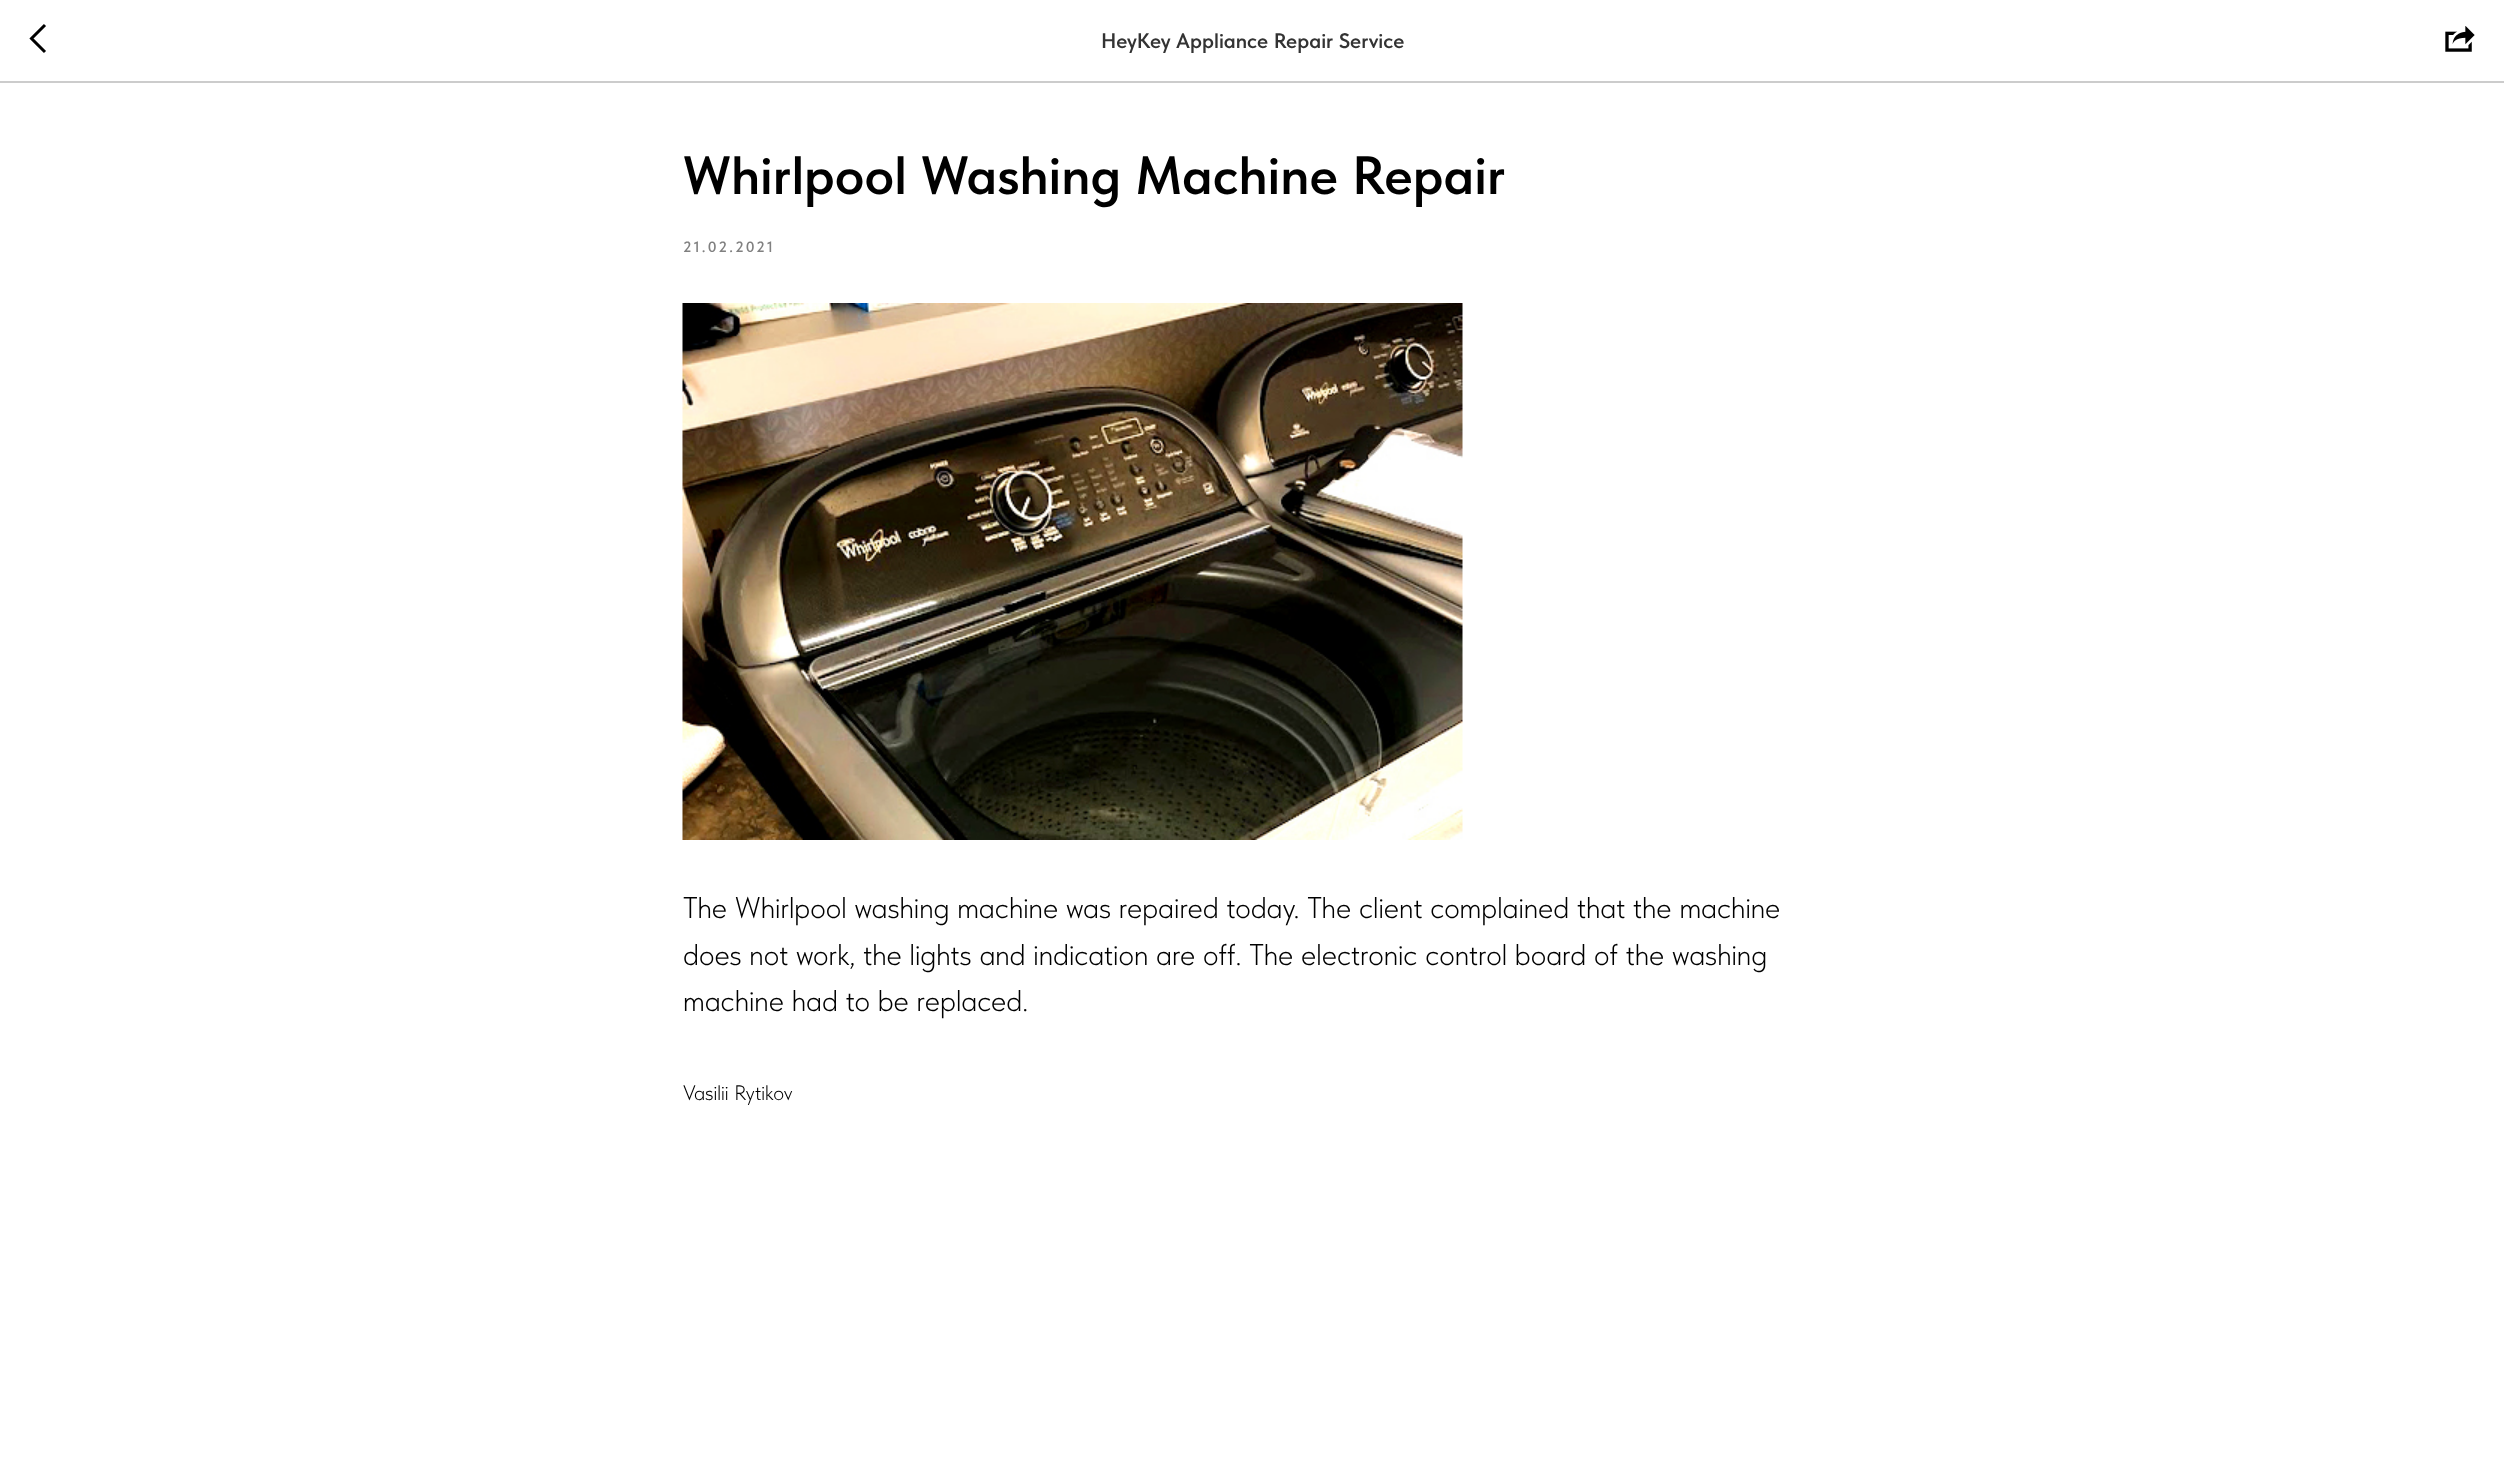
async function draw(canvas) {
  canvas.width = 2504;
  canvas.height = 1479;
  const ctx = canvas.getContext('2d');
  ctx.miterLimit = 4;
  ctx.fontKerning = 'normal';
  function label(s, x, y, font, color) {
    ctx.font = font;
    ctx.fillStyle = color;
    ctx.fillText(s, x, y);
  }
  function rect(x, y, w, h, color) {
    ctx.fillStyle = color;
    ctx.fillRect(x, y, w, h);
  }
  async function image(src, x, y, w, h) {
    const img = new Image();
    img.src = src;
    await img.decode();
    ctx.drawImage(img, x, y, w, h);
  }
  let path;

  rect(0, 0, 2504, 1479, '#fff');
  rect(0, 81, 2504, 2, '#ccc');
  path = new Path2D('M45 52L31.5 38.5L45 25');
  ctx.strokeStyle = '#000';
  ctx.lineWidth = 3;
  ctx.stroke(path);
  label('HeyKey Appliance Repair Service', 1101, 48, '600 21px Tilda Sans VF', '#333');
  await image('assets/img1.png', 2445, 26, 30, 26);
  label('Whirlpool Washing Machine Repair', 683, 194, '600 54px Tilda Sans VF', '#000');
  ctx.letterSpacing = '2.25px';
  label('21.02.2021', 683, 252, '600 15px Tilda Sans VF', '#808080');
  await image('assets/img2.png', 682, 303, 781, 537);
  ctx.letterSpacing = '0px';
  label('The Whirlpool washing machine was repaired today. The client complained that the machine', 683, 918, '300 30px Tilda Sans VF', '#000');
  label('does not work, the lights and indication are off. The electronic control board of the washing', 683, 965, '300 30px Tilda Sans VF', '#000');
  label('machine had to be replaced.', 683, 1011, '300 30px Tilda Sans VF', '#000');
  label('Vasilii Rytikov', 683, 1100, '300 21px Tilda Sans VF', '#000');
}

draw(document.querySelector('canvas'));
